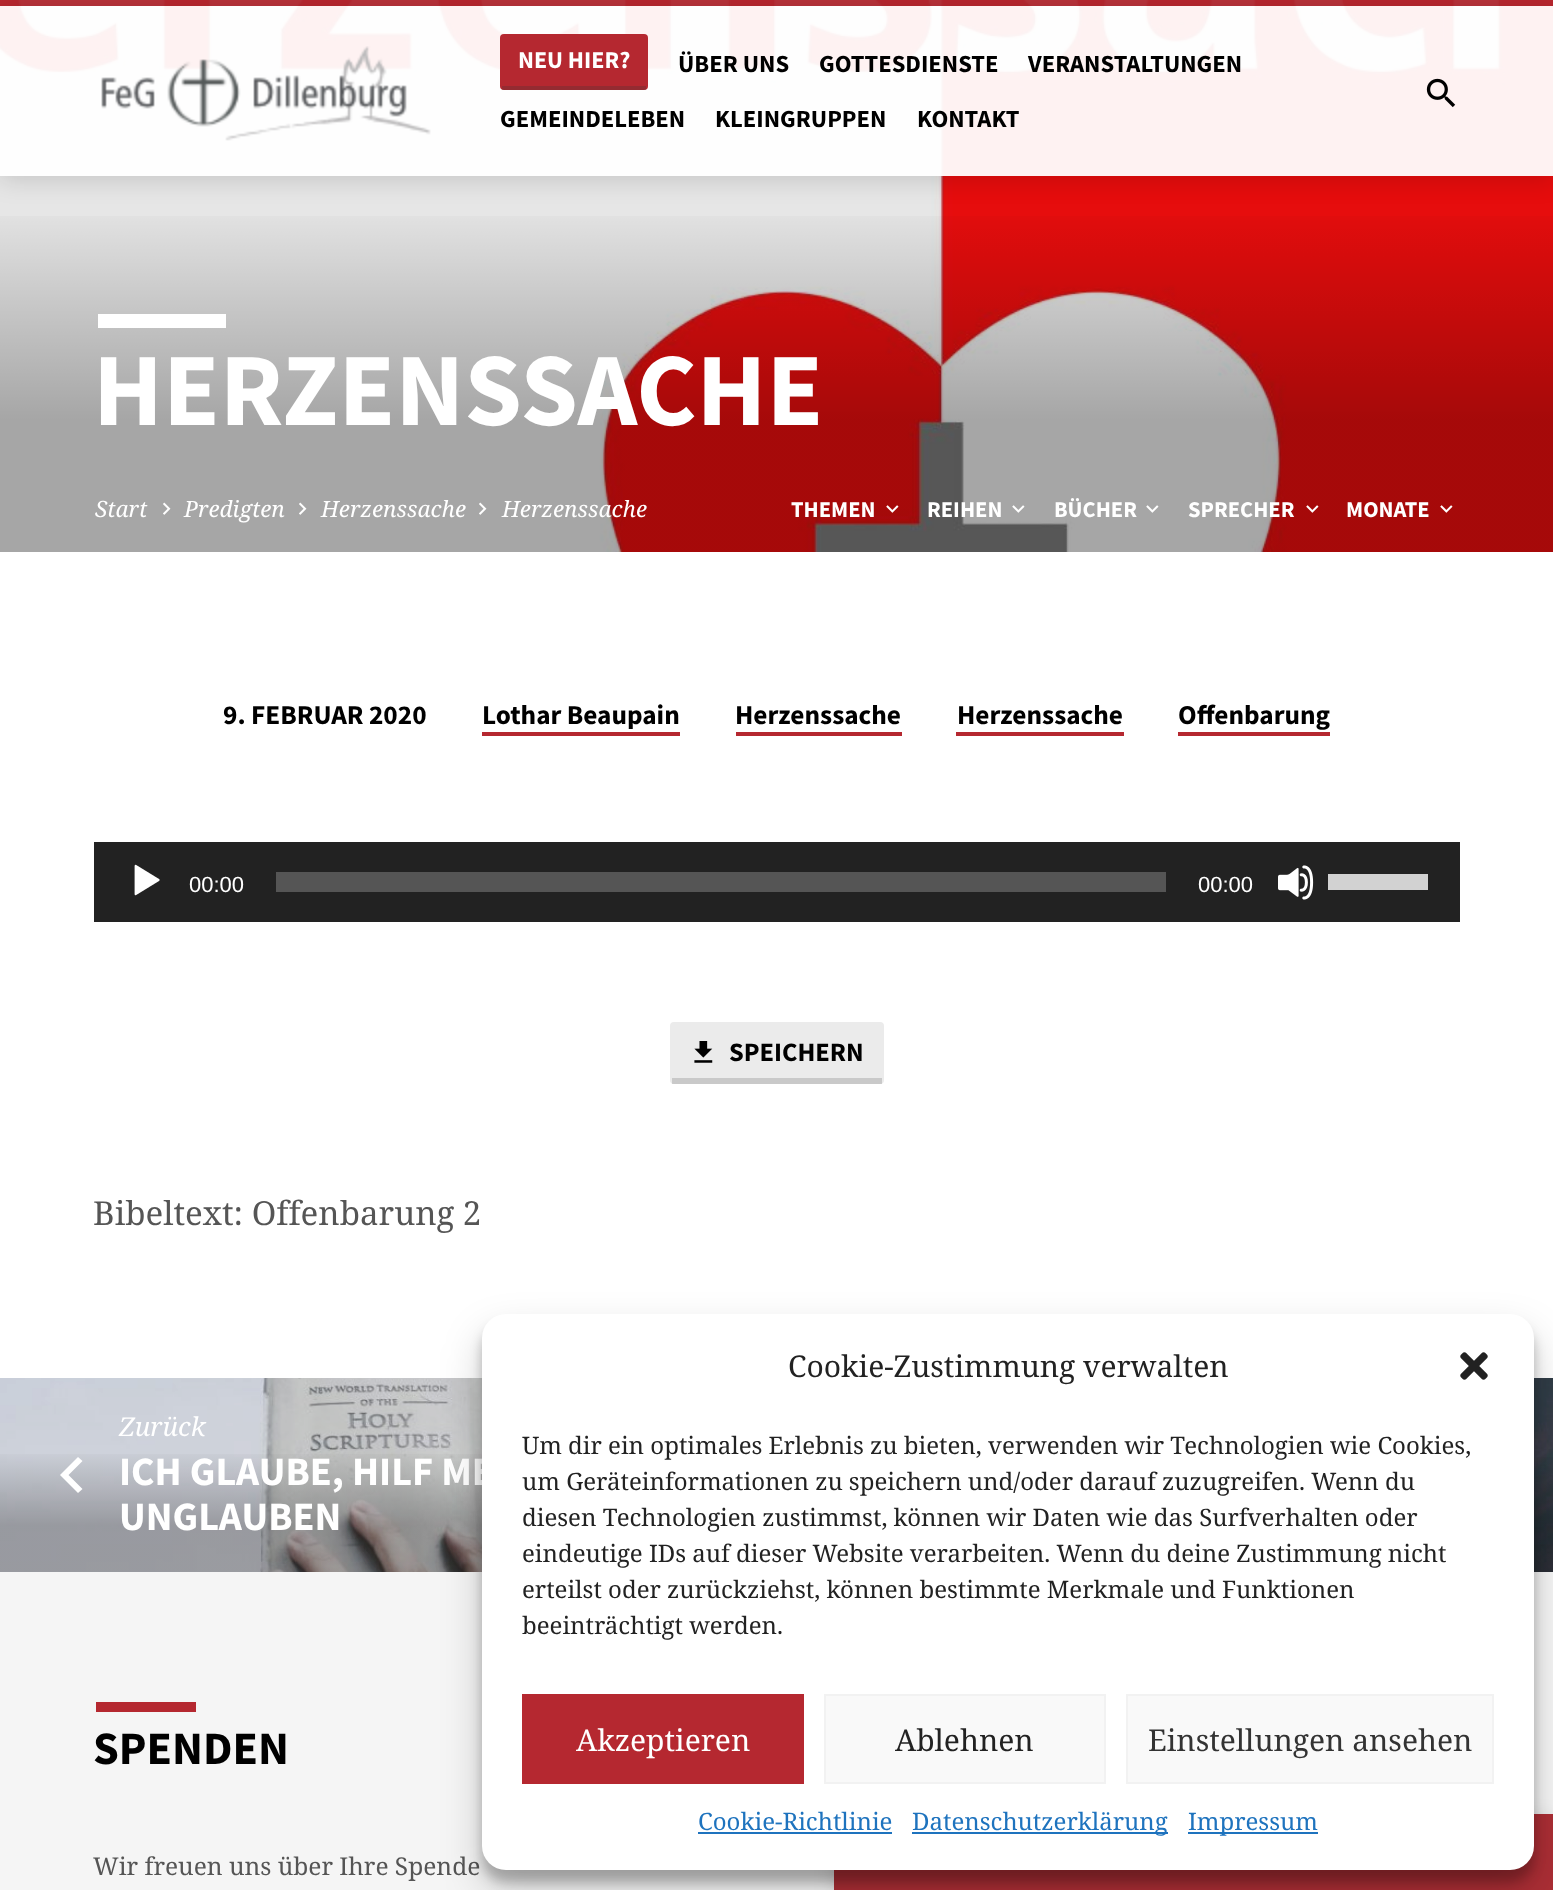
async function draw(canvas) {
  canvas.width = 1553;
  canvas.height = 1890;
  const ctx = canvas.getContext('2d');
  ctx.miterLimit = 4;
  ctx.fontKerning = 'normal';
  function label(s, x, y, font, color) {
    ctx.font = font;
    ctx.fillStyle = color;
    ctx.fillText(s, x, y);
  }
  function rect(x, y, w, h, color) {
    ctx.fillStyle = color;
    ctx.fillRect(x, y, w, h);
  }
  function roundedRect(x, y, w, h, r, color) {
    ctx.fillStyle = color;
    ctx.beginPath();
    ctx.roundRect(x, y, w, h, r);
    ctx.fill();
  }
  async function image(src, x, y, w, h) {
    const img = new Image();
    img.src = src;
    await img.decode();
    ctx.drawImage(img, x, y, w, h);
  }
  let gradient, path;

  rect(0, 0, 1553, 1890, '#fff');
  await image('assets/img3.png', 0, 0, 1553, 552);
  rect(0, 0, 1553, 6, '#b52830f2');
  rect(0, 6, 1553, 170, '#fffffff2');
  gradient = ctx.createLinearGradient(777, 0, 777, 552);
  gradient.addColorStop(0, '#00000000');
  gradient.addColorStop(0.36, '#00000000');
  gradient.addColorStop(0.76, '#00000047');
  gradient.addColorStop(1, '#00000047');
  ctx.fillStyle = gradient;
  ctx.fillRect(0, 216, 1553, 336);
  ctx.save();
  path = new Path2D('M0 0H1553V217H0ZM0 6H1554V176H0Z');
  ctx.clip(path, 'evenodd');
  ctx.fillStyle = '#00000024';
  ctx.filter = 'blur(12px)';
  ctx.beginPath();
  ctx.rect(0, 10, 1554, 170);
  ctx.fill();
  ctx.filter = 'none';
  ctx.restore();
  await image('assets/img1.png', 101, 46, 330, 95);
  roundedRect(500, 34, 148, 56, 4, '#b52830');
  rect(502, 86, 144, 4, '#32323240');
  label('NEU HIER?', 518, 68, 'bold 24px Source Sans Pro', '#fff');
  label('ÜBER UNS', 678, 72, 'bold 24.6px Source Sans Pro', '#000');
  label('GOTTESDIENSTE', 819, 72, 'bold 24.6px Source Sans Pro', '#000');
  label('VERANSTALTUNGEN', 1028, 72, 'bold 24.6px Source Sans Pro', '#000');
  label('GEMEINDELEBEN', 500, 127, 'bold 24.6px Source Sans Pro', '#000');
  label('KLEINGRUPPEN', 715, 127, 'bold 24.6px Source Sans Pro', '#000');
  label('KONTAKT', 917, 127, 'bold 24.6px Source Sans Pro', '#000');
  await image('assets/img2.png', 1426, 78, 30, 30);
  rect(98, 314, 128, 14, '#fff');
  label('HERZENSSACHE', 93, 425, 'bold 103.75px Source Sans Pro', '#fff');
  label('Start', 95, 517, 'italic 22.5px Noto Serif', '#fff');
  await image('assets/img4.png', 163, 502, 8, 13);
  label('Predigten', 184, 517, 'italic 22.5px Noto Serif', '#fff');
  await image('assets/img4.png', 299, 502, 8, 13);
  label('Herzenssache', 321, 517, 'italic 22.5px Noto Serif', '#fff');
  await image('assets/img4.png', 479, 502, 8, 13);
  label('Herzenssache', 502, 517, 'italic 22.5px Noto Serif', '#fff');
  label('THEMEN', 791, 517, 'bold 22.5px Source Sans Pro', '#fff');
  await image('assets/img5.png', 886, 505, 13, 8);
  label('REIHEN', 927, 517, 'bold 22.5px Source Sans Pro', '#fff');
  await image('assets/img6.png', 1012, 505, 13, 8);
  label('BÜCHER', 1054, 517, 'bold 22.5px Source Sans Pro', '#fff');
  await image('assets/img6.png', 1146, 505, 13, 8);
  label('SPRECHER', 1188, 517, 'bold 22.5px Source Sans Pro', '#fff');
  await image('assets/img7.png', 1306, 505, 13, 8);
  label('MONATE', 1346, 517, 'bold 22.5px Source Sans Pro', '#fff');
  await image('assets/img7.png', 1440, 505, 13, 8);
  label('9. FEBRUAR 2020', 223, 724, 'bold 27.25px Source Sans Pro', '#000');
  label('Lothar Beaupain', 482, 724, 'bold 27.25px Source Sans Pro', '#000');
  rect(482, 732, 198, 4, '#b52830');
  label('Herzenssache', 735, 724, 'bold 27.25px Source Sans Pro', '#000');
  rect(736, 732, 166, 4, '#b52830');
  label('Herzenssache', 957, 724, 'bold 27.25px Source Sans Pro', '#000');
  rect(956, 732, 168, 4, '#b52830');
  label('Offenbarung', 1178, 724, 'bold 27.25px Source Sans Pro', '#000');
  rect(1178, 732, 152, 4, '#b52830');
  rect(94, 842, 1366, 80, '#222');
  await image('assets/img8.png', 134, 864, 26, 32);
  label('00:00', 189, 892, '22px Liberation Sans', '#fff');
  rect(276, 872, 890, 20, '#555');
  label('00:00', 1198, 892, '22px Liberation Sans', '#fff');
  await image('assets/img9.png', 1278, 865, 36, 35);
  rect(1328, 874, 100, 16, '#d2d2d2');
  roundedRect(670, 1022, 214, 62, 4, '#ebebeb');
  rect(672, 1078, 210, 6, '#3232322e');
  await image('assets/img10.png', 694, 1041, 19, 22);
  label('SPEICHERN', 729, 1061, 'bold 26.5px Source Sans Pro', '#000');
  label('Bibeltext: Offenbarung 2', 93, 1225, '33.1px Noto Serif', '#555');
  await image('assets/img11.png', 0, 1378, 482, 194);
  gradient = ctx.createLinearGradient(391, 1378, 391, 1572);
  gradient.addColorStop(0, '#06060600');
  gradient.addColorStop(0.36, '#06060600');
  gradient.addColorStop(0.76, '#06060647');
  gradient.addColorStop(1, '#06060647');
  ctx.fillStyle = gradient;
  ctx.fillRect(0, 1454, 482, 118);
  ctx.fillStyle = '#fff';
  path = new Path2D('M82.5 1489L68.5 1475L82.5 1461L78 1457L60 1475L78 1493Z');
  ctx.fill(path);
  label('Zurück', 119, 1436, 'italic 26px Noto Serif', '#fff');
  label('ICH GLAUBE, HILF ME', 119, 1485, 'bold 40.25px Source Sans Pro', '#fff');
  label('UNGLAUBEN', 119, 1530, 'bold 40.25px Source Sans Pro', '#fff');
  await image('assets/img12.png', 1534, 1378, 19, 194);
  gradient = ctx.createLinearGradient(1171, 1378, 1171, 1572);
  gradient.addColorStop(0, '#06060600');
  gradient.addColorStop(0.36, '#06060600');
  gradient.addColorStop(0.76, '#06060647');
  gradient.addColorStop(1, '#06060647');
  ctx.fillStyle = gradient;
  ctx.fillRect(1534, 1457, 19, 115);
  rect(0, 1572, 1553, 318, '#f5f5f5');
  rect(96, 1702, 100, 10, '#b52830');
  label('SPENDEN', 93, 1764, 'bold 46.5px Source Sans Pro', '#000');
  label('Wir freuen uns über Ihre Spende', 93, 1875, '24.5px Noto Serif', '#555');
  ctx.fillStyle = '#0000001f';
  ctx.filter = 'blur(10px)';
  ctx.beginPath();
  ctx.roundRect(834, 1818, 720, 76, 4);
  ctx.fill();
  ctx.filter = 'none';
  rect(834, 1814, 719, 76, '#b8323a');
  rect(834, 1814, 719, 76, '#00000012');
  ctx.fillStyle = '#0000003b';
  ctx.filter = 'blur(6px)';
  ctx.beginPath();
  ctx.roundRect(482, 1326, 1052, 556, 24);
  ctx.fill();
  ctx.filter = 'none';
  ctx.fillStyle = '#00000030';
  ctx.filter = 'blur(20px)';
  ctx.beginPath();
  ctx.roundRect(482, 1334, 1052, 556, 24);
  ctx.fill();
  ctx.filter = 'none';
  roundedRect(482, 1314, 1052, 556, 24, '#fff');
  label('Cookie-Zustimmung verwalten', 788, 1377, '30px Noto Serif', '#222');
  await image('assets/img13.png', 1460, 1352, 28, 28);
  label('Um dir ein optimales Erlebnis zu bieten, verwenden wir Technologien wie Cookies,', 522, 1454, '24px Noto Serif', '#222');
  label('um Geräteinformationen zu speichern und/oder darauf zuzugreifen. Wenn du', 522, 1490, '24px Noto Serif', '#222');
  label('diesen Technologien zustimmst, können wir Daten wie das Surfverhalten oder', 522, 1526, '24px Noto Serif', '#222');
  label('eindeutige IDs auf dieser Website verarbeiten. Wenn du deine Zustimmung nicht', 522, 1562, '24px Noto Serif', '#222');
  label('erteilst oder zurückziehst, können bestimmte Merkmale und Funktionen', 522, 1598, '24px Noto Serif', '#222');
  label('beeinträchtigt werden.', 522, 1634, '24px Noto Serif', '#222');
  rect(522, 1694, 282, 90, '#b52830');
  label('Akzeptieren', 576, 1751, '30px Noto Serif', '#fff');
  ctx.fillStyle = '#f9f9f9';
  ctx.beginPath();
  ctx.rect(825, 1695, 280, 88);
  ctx.fill();
  ctx.strokeStyle = '#f2f2f2';
  ctx.lineWidth = 2;
  ctx.stroke();
  label('Ablehnen', 895, 1751, '30px Noto Serif', '#222');
  ctx.fillStyle = '#f9f9f9';
  ctx.beginPath();
  ctx.rect(1127, 1695, 366, 88);
  ctx.fill();
  ctx.stroke();
  label('Einstellungen ansehen', 1148, 1751, '30px Noto Serif', '#333');
  label('Cookie-Richtlinie', 698, 1830, '24px Noto Serif', '#1e73be');
  rect(698, 1832, 194, 2, '#1e73be');
  rect(912, 1832, 256, 2, '#1e73be');
  label('Datenschutzerklärung', 912, 1830, '24px Noto Serif', '#1e73be');
  rect(1188, 1832, 130, 2, '#1e73be');
  label('Impressum', 1188, 1830, '24px Noto Serif', '#1e73be');
}

draw(document.querySelector('canvas'));
